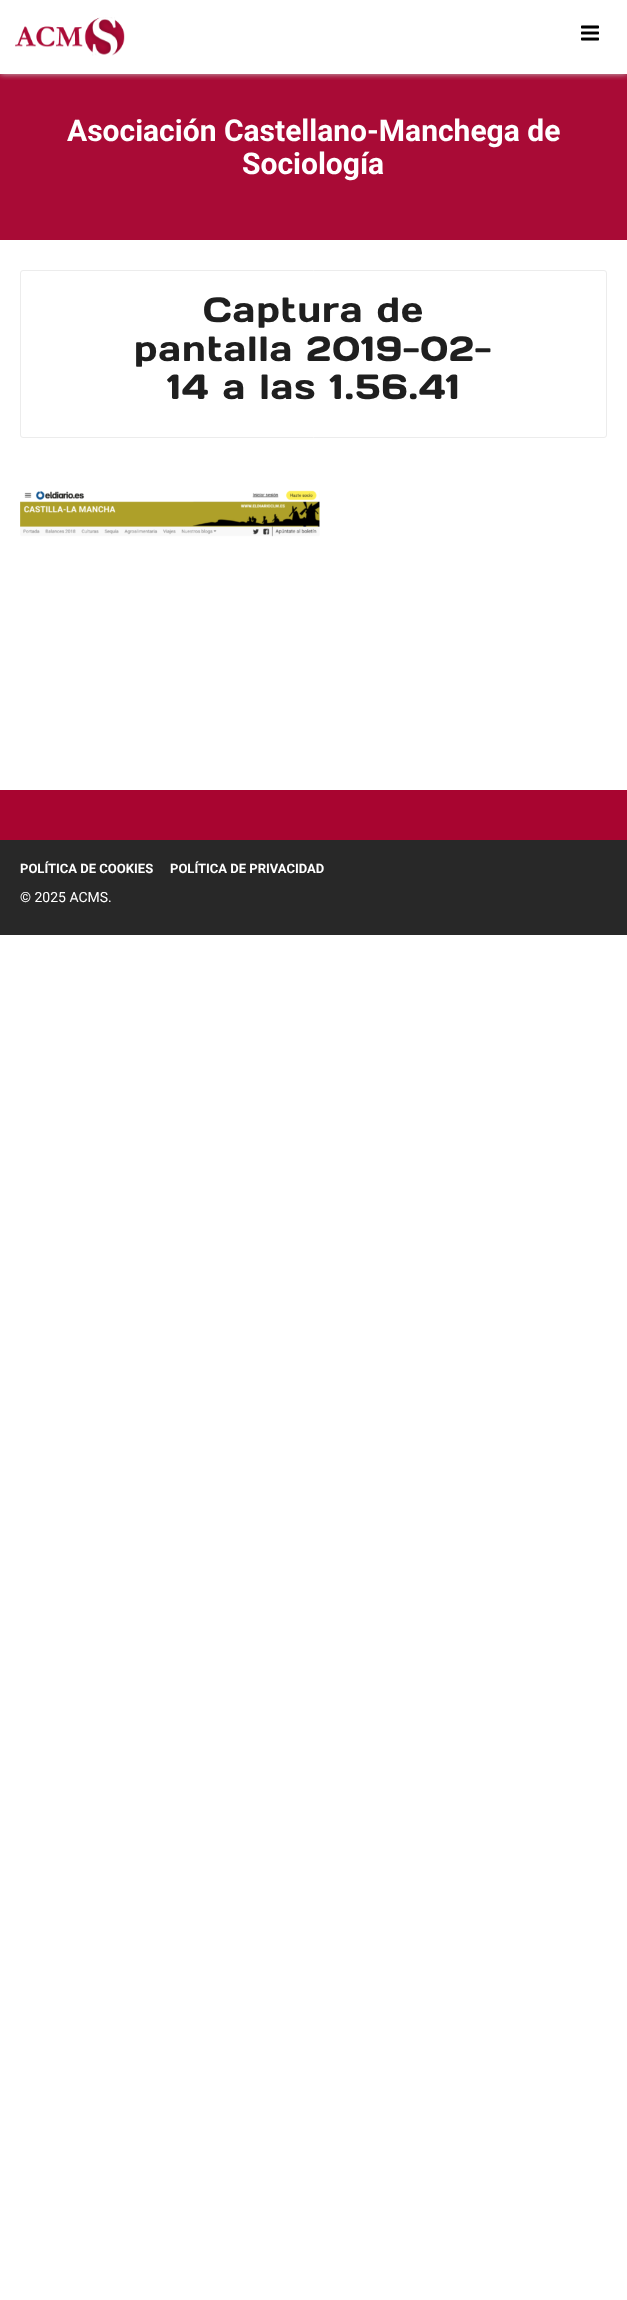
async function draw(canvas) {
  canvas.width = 627;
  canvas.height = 2300;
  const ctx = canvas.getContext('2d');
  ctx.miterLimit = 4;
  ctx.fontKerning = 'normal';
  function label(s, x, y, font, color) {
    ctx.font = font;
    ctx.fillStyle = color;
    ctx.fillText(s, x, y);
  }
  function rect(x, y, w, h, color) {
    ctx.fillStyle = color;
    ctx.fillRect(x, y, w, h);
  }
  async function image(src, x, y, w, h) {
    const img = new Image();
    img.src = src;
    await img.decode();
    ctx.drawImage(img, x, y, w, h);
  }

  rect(0, 0, 627, 2300, '#fff');
  rect(0, 74, 627, 166, '#a90b36');
  ctx.save();
  ctx.beginPath();
  ctx.rect(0, 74, 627, 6);
  ctx.clip();
  ctx.fillStyle = '#c7c7c7';
  ctx.filter = 'blur(3px)';
  ctx.beginPath();
  ctx.rect(0, 0, 627, 74);
  ctx.fill();
  ctx.filter = 'none';
  ctx.restore();
  await image('assets/img1.png', 15, 17, 110, 39);
  await image('assets/img2.png', 581, 25, 18, 16);
  label('Asociación Castellano-Manchega de', 67, 141, 'bold 30px Roboto', '#fff');
  label('Sociología', 242, 174, 'bold 30px Roboto', '#fff');
  ctx.beginPath();
  ctx.roundRect(20.5, 270.5, 586, 167, 2.5);
  ctx.strokeStyle = '#ececec';
  ctx.stroke();
  ctx.letterSpacing = '1px';
  label('Captura de', 203, 322, '35px Days One', '#1f1f1f');
  label('pantalla 2019-02-', 134, 361, '35px Days One', '#1f1f1f');
  label('14 a las 1.56.41', 167, 399, '35px Days One', '#1f1f1f');
  await image('assets/img3.png', 20, 490, 300, 47);
  rect(0, 790, 627, 50, '#a80530');
  rect(0, 840, 627, 95, '#282828');
  ctx.letterSpacing = '0px';
  label('POLÍTICA DE COOKIES', 20, 873, 'bold 13px Roboto', '#fff');
  label('POLÍTICA DE PRIVACIDAD', 170, 873, 'bold 13px Roboto', '#fff');
  label('© 2025 ACMS.', 20, 902, '14px Roboto', '#fff');
}

draw(document.querySelector('canvas'));
